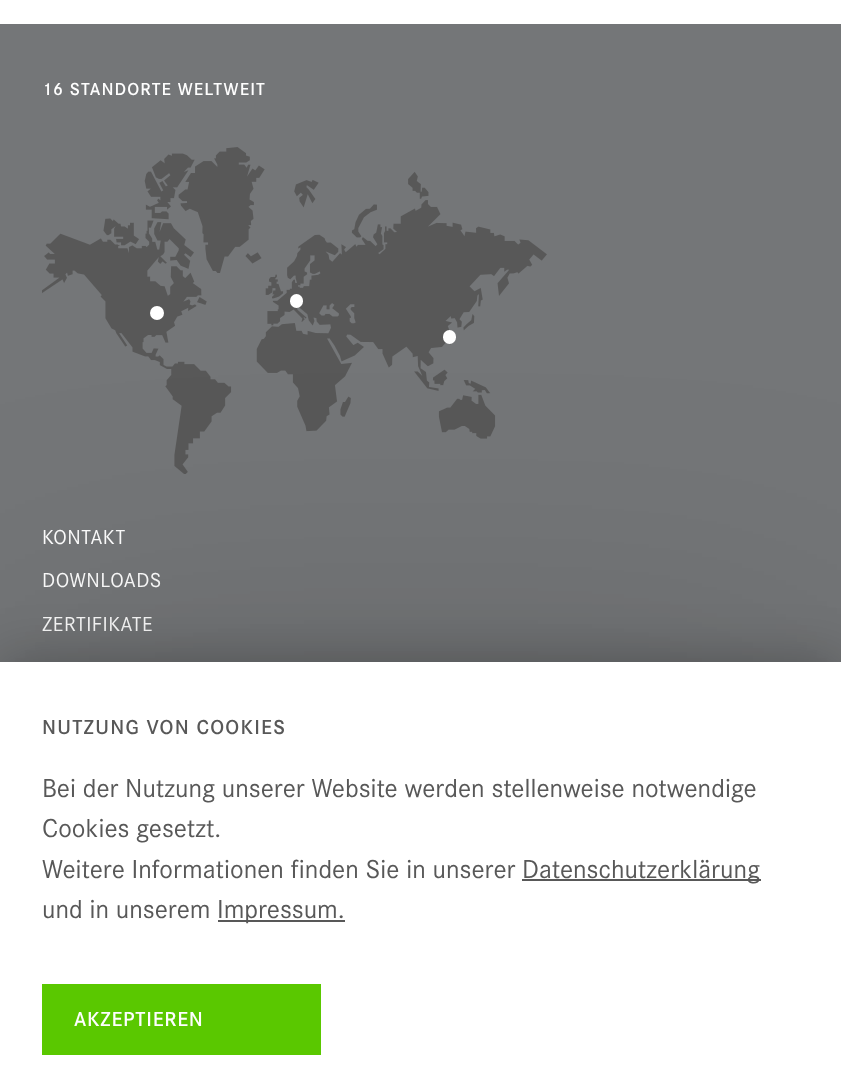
async function draw(canvas) {
  canvas.width = 841;
  canvas.height = 1081;
  const ctx = canvas.getContext('2d');
  ctx.miterLimit = 4;
  ctx.fontKerning = 'normal';
  function label(s, x, y, font, color) {
    ctx.font = font;
    ctx.fillStyle = color;
    ctx.fillText(s, x, y);
  }
  function rect(x, y, w, h, color) {
    ctx.fillStyle = color;
    ctx.fillRect(x, y, w, h);
  }
  function roundedRect(x, y, w, h, r, color) {
    ctx.fillStyle = color;
    ctx.beginPath();
    ctx.roundRect(x, y, w, h, r);
    ctx.fill();
  }
  async function image(src, x, y, w, h) {
    const img = new Image();
    img.src = src;
    await img.decode();
    ctx.drawImage(img, x, y, w, h);
  }

  rect(0, 0, 841, 1081, '#fff');
  rect(0, 24, 841, 638, '#747678');
  ctx.letterSpacing = '1.1px';
  label('16 STANDORTE WELTWEIT', 42, 95, '300 18.1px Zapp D', '#fefefe');
  await image('assets/img1.png', 42, 147, 505, 327);
  roundedRect(290, 294, 13, 14, 6.5, '#fff');
  ctx.beginPath();
  ctx.arc(157, 313, 7, 0, 2 * Math.PI);
  ctx.fill();
  roundedRect(443, 330, 13, 14, 6.5, '#fff');
  ctx.letterSpacing = '0.5px';
  label('KONTAKT', 42, 544, '21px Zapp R', '#fefefe');
  label('DOWNLOADS', 42, 587, '21px Zapp R', '#fefefe');
  label('ZERTIFIKATE', 42, 631, '21px Zapp R', '#fefefe');
  ctx.fillStyle = '#00000040';
  ctx.filter = 'blur(27px)';
  ctx.beginPath();
  ctx.rect(0, 662, 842, 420);
  ctx.fill();
  ctx.filter = 'none';
  ctx.fillStyle = '#00000026';
  ctx.filter = 'blur(150px)';
  ctx.beginPath();
  ctx.rect(0, 675, 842, 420);
  ctx.fill();
  ctx.filter = 'none';
  rect(0, 662, 841, 419, '#fff');
  ctx.letterSpacing = '1.25px';
  label('NUTZUNG VON COOKIES', 42, 734, '300 21px Zapp D', '#585858');
  ctx.letterSpacing = '0px';
  label('Bei der Nutzung unserer Website werden stellenweise notwendige', 42, 797, '27px Zapp R', '#585858');
  label('Cookies gesetzt.', 42, 837, '27px Zapp R', '#585858');
  label('Weitere Informationen finden Sie in unserer', 42, 878, '27px Zapp R', '#585858');
  rect(522, 879, 239, 2, '#585858');
  label('Datenschutzerklärung', 522, 878, '27px Zapp R', '#585858');
  label('und in unserem', 42, 918, '27px Zapp R', '#585858');
  rect(218, 920, 127, 2, '#585858');
  label('Impressum.', 217, 918, '27px Zapp R', '#585858');
  rect(42, 984, 279, 71, '#5ac800');
  ctx.letterSpacing = '0.75px';
  label('AKZEPTIEREN', 74, 1026, '300 21px Zapp D', '#fefefe');
}

draw(document.querySelector('canvas'));
